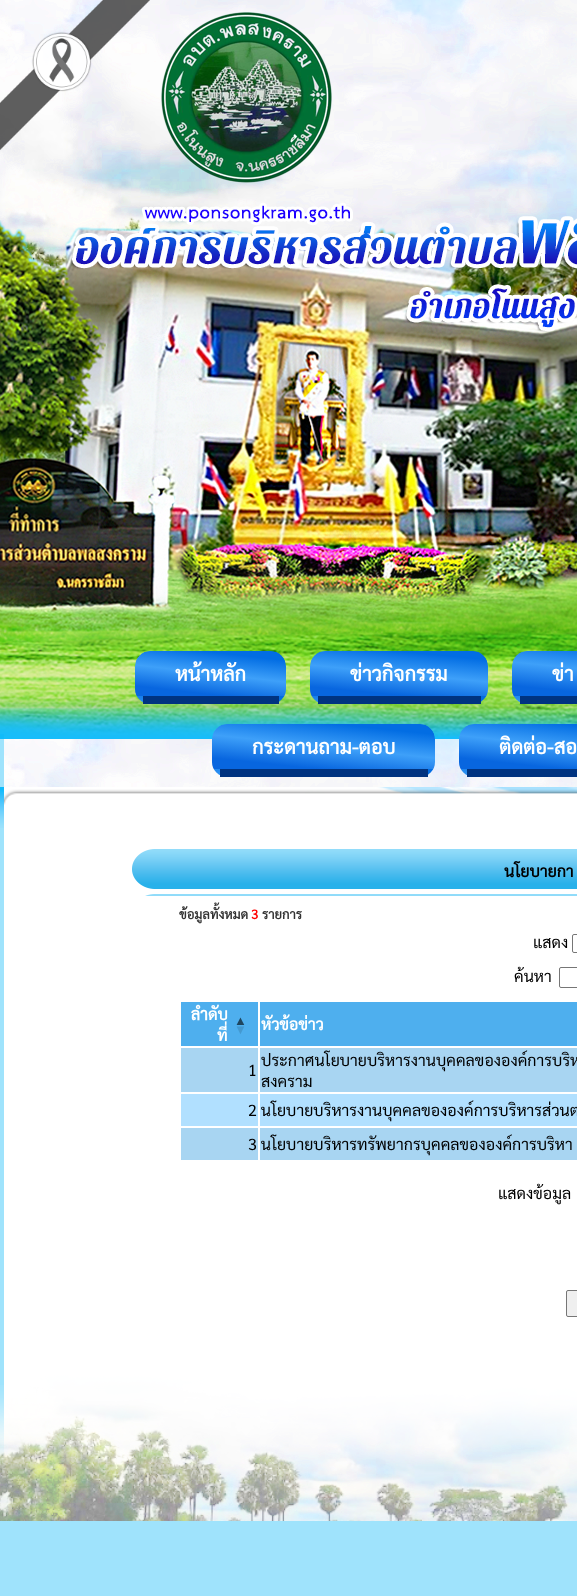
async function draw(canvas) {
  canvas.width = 577;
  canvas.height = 1596;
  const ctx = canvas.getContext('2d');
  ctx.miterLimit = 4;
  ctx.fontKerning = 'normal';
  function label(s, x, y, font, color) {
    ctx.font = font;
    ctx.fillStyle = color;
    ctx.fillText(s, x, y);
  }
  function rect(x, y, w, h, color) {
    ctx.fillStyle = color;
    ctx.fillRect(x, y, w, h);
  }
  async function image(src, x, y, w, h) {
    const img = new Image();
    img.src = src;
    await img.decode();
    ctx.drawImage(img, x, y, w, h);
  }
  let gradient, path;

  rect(0, 0, 577, 1596, '#9fe3fc');
  await image('assets/img2.png', 0, 0, 4, 739);
  await image('assets/img3.png', 4, 0, 573, 787);
  await image('assets/img1.png', 0, 0, 150, 150);
  await image('assets/img4.png', 161, 12, 171, 171);
  await image('assets/img5.png', 70, 216, 507, 116);
  ctx.save();
  ctx.beginPath();
  ctx.roundRect(135, 651, 151, 53, 15);
  ctx.clip();
  gradient = ctx.createLinearGradient(207, 704, 214, 643);
  gradient.addColorStop(0.16, '#0866df');
  gradient.addColorStop(0.5, '#3ea0f9');
  gradient.addColorStop(0.85, '#026de3');
  ctx.fillStyle = gradient;
  ctx.beginPath();
  ctx.roundRect(135, 651, 151, 45, [15, 15, 0, 0]);
  ctx.fill();
  gradient = ctx.createLinearGradient(207, 749, 214, 688);
  gradient.addColorStop(0.16, '#0866df');
  gradient.addColorStop(0.5, '#3ea0f9');
  gradient.addColorStop(0.85, '#026de3');
  ctx.fillStyle = gradient;
  ctx.fillRect(135, 696, 151, 7);
  ctx.restore();
  rect(143, 696, 136, 8, '#003380');
  label('หน้าหลัก', 175, 681, 'bold 20px Sarabun', '#fff');
  ctx.save();
  ctx.beginPath();
  ctx.roundRect(310, 651, 178, 53, 15);
  ctx.clip();
  gradient = ctx.createLinearGradient(396, 705, 402, 642);
  gradient.addColorStop(0.16, '#0866df');
  gradient.addColorStop(0.5, '#3ea0f9');
  gradient.addColorStop(0.85, '#026de3');
  ctx.fillStyle = gradient;
  ctx.beginPath();
  ctx.roundRect(310, 651, 178, 45, [15, 15, 0, 0]);
  ctx.fill();
  gradient = ctx.createLinearGradient(396, 750, 402, 687);
  gradient.addColorStop(0.16, '#0866df');
  gradient.addColorStop(0.5, '#3ea0f9');
  gradient.addColorStop(0.85, '#026de3');
  ctx.fillStyle = gradient;
  ctx.fillRect(310, 696, 178, 7);
  ctx.restore();
  rect(318, 696, 163, 8, '#003380');
  label('ข่าวกิจกรรม', 350, 681, 'bold 20px Sarabun', '#fff');
  ctx.save();
  ctx.beginPath();
  ctx.roundRect(512, 651, 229, 53, 15);
  ctx.clip();
  gradient = ctx.createLinearGradient(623, 708, 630, 639);
  gradient.addColorStop(0.16, '#0866df');
  gradient.addColorStop(0.5, '#3ea0f9');
  gradient.addColorStop(0.85, '#026de3');
  ctx.fillStyle = gradient;
  path = new Path2D('M527 651H577C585.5 651 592 657.5 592 666V696H512V666C512 657.5 518.5 651 527 651Z');
  ctx.fill(path);
  gradient = ctx.createLinearGradient(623, 753, 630, 684);
  gradient.addColorStop(0.16, '#0866df');
  gradient.addColorStop(0.5, '#3ea0f9');
  gradient.addColorStop(0.85, '#026de3');
  ctx.fillStyle = gradient;
  ctx.fillRect(512, 696, 8, 7);
  ctx.restore();
  rect(520, 696, 57, 8, '#003380');
  label('ข่า', 552, 681, 'bold 20px Sarabun', '#fff');
  ctx.save();
  ctx.beginPath();
  ctx.roundRect(212, 724, 223, 53, 15);
  ctx.clip();
  gradient = ctx.createLinearGradient(320, 780, 327, 713);
  gradient.addColorStop(0.16, '#0866df');
  gradient.addColorStop(0.5, '#3ea0f9');
  gradient.addColorStop(0.85, '#026de3');
  ctx.fillStyle = gradient;
  ctx.beginPath();
  ctx.roundRect(212, 724, 223, 45, [15, 15, 0, 0]);
  ctx.fill();
  gradient = ctx.createLinearGradient(320, 825, 327, 758);
  gradient.addColorStop(0.16, '#0866df');
  gradient.addColorStop(0.5, '#3ea0f9');
  gradient.addColorStop(0.85, '#026de3');
  ctx.fillStyle = gradient;
  ctx.fillRect(212, 769, 223, 7);
  ctx.restore();
  rect(220, 769, 208, 8, '#003380');
  label('กระดานถาม-ตอบ', 252, 754, 'bold 20px Sarabun', '#fff');
  ctx.save();
  ctx.beginPath();
  ctx.roundRect(459, 724, 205, 53, 15);
  ctx.clip();
  gradient = ctx.createLinearGradient(558, 779, 565, 714);
  gradient.addColorStop(0.16, '#0866df');
  gradient.addColorStop(0.5, '#3ea0f9');
  gradient.addColorStop(0.85, '#026de3');
  ctx.fillStyle = gradient;
  path = new Path2D('M474 724H577C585.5 724 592 730.5 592 739V769H459V739C459 730.5 465.5 724 474 724Z');
  ctx.fill(path);
  gradient = ctx.createLinearGradient(558, 824, 565, 759);
  gradient.addColorStop(0.16, '#0866df');
  gradient.addColorStop(0.5, '#3ea0f9');
  gradient.addColorStop(0.85, '#026de3');
  ctx.fillStyle = gradient;
  ctx.fillRect(459, 769, 8, 7);
  ctx.restore();
  rect(467, 769, 110, 8, '#003380');
  label('ติดต่อ-สอ', 499, 754, 'bold 20px Sarabun', '#fff');
  await image('assets/img6.png', 0, 787, 4, 41);
  rect(4, 805, 573, 541, '#fff');
  await image('assets/img7.png', 4, 787, 573, 18);
  await image('assets/img8.png', 132, 849, 445, 47);
  label('นโยบายกา', 504, 877, 'bold 16px Sarabun', '#000');
  label('ข้อมูลทั้งหมด', 179, 919, 'bold 13px Sarabun', '#333');
  label('3', 251, 919, 'bold 13px Sarabun', '#f00');
  label('รายการ', 262, 919, 'bold 13px Sarabun', '#333');
  label('แสดง', 533, 948, '16px Sarabun', '#000');
  ctx.beginPath();
  ctx.roundRect(572.5, 934.5, 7, 18, 1.5);
  ctx.strokeStyle = '#767676';
  ctx.stroke();
  label('ค้นหา', 514, 982, '16px Sarabun', '#000');
  ctx.beginPath();
  ctx.roundRect(559.5, 967.5, 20, 20, 1.5);
  ctx.stroke();
  rect(181, 1002, 77, 44, '#4eafee');
  label('ลำดับ', 191, 1020, 'bold 16px Sarabun', '#fff');
  label('ที่', 217, 1041, 'bold 16px Sarabun', '#fff');
  label('▲', 234, 1025, '13px Liberation Sans', '#1f465f');
  label('▼', 234, 1034, '13px Liberation Sans', '#4499d0');
  rect(260, 1002, 317, 44, '#4eafee');
  label('หัวข้อข่าว', 261, 1030, 'bold 16px Sarabun', '#fff');
  rect(181, 1048, 77, 44, '#a8d5f2');
  label('1', 248, 1076, '16px Sarabun', '#000');
  rect(260, 1048, 317, 44, '#a8d5f2');
  label('ประกาศนโยบายบริหารงานบุคคลขององค์การบริห', 261, 1066, '16px Sarabun', '#000');
  label('สงคราม', 261, 1087, '16px Sarabun', '#000');
  rect(260, 1094, 317, 32, '#b1e0ff');
  rect(181, 1094, 77, 32, '#b1e0ff');
  label('2 นโยบายบริหารงานบุคคลขององค์การบริหารส่วนต', 248, 1116, '16px Sarabun', '#000');
  rect(260, 1128, 317, 32, '#a8d5f2');
  rect(181, 1128, 77, 32, '#a8d5f2');
  label('3 นโยบายบริหารทรัพยากรบุคคลขององค์การบริหา', 248, 1150, '16px Sarabun', '#000');
  label('แสดงข้อมูล', 498, 1199, '16px Sarabun', '#000');
  ctx.fillStyle = '#efefef';
  ctx.beginPath();
  ctx.roundRect(566.5, 1290.5, 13, 26, 1.5);
  ctx.fill();
  ctx.stroke();
  await image('assets/img9.png', 0, 1385, 4, 136);
  await image('assets/img10.png', 4, 1346, 573, 175);
}

draw(document.querySelector('canvas'));
